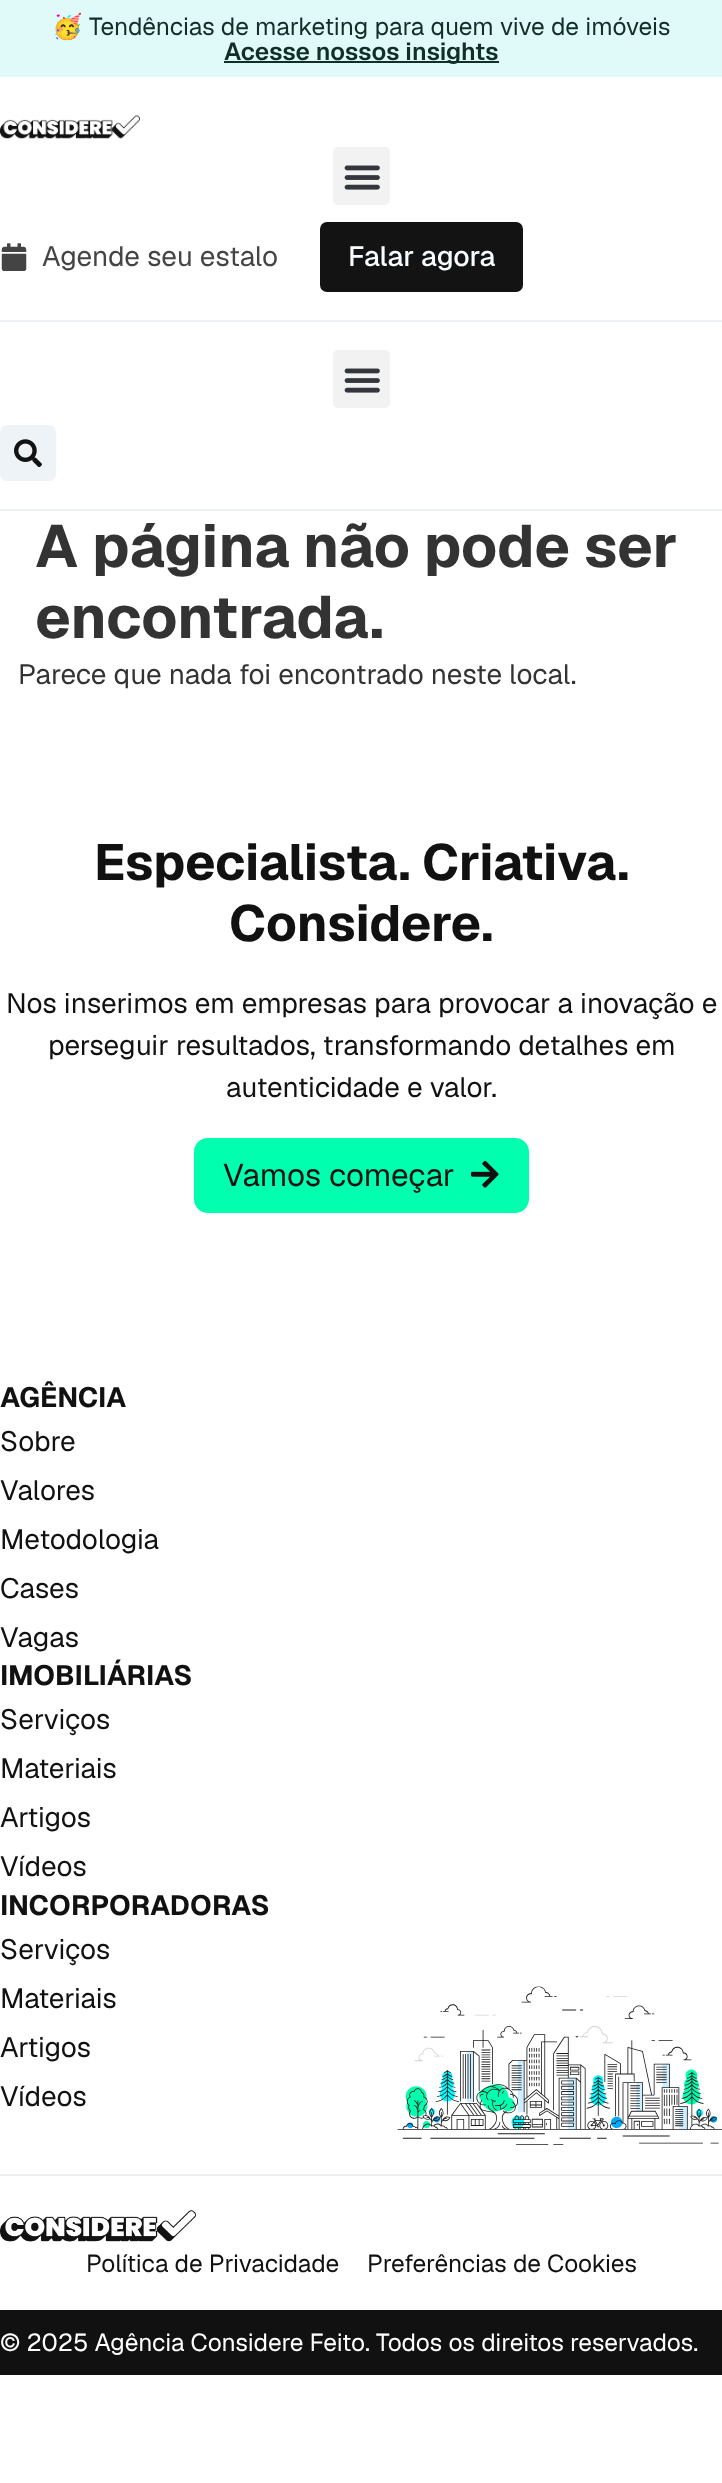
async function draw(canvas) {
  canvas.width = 722;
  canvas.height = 2483;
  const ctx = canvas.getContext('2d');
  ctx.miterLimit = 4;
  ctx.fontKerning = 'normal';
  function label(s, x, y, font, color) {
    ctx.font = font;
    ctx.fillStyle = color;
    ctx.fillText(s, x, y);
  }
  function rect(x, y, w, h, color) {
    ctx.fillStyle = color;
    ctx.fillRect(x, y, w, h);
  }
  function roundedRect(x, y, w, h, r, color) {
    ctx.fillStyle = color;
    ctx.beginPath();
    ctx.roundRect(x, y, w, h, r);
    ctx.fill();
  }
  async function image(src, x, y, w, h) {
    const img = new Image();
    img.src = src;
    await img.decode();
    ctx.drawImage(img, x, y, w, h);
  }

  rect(0, 0, 722, 2483, '#fff');
  rect(0, 0, 722, 77, '#e0faf9');
  label('🥳', 52, 35, '24.5px Noto Color Emoji', '#112e29');
  label('Tendências de marketing para quem vive de imóveis', 89, 35, '24.5px Geist', '#112e29');
  rect(224, 61, 275, 2, '#112e29');
  label('Acesse nossos insights', 224, 60, '600 24.5px Geist', '#112e29');
  rect(0, 320, 722, 2, '#edf0f5');
  await image('assets/img1.png', 0, 115, 140, 24);
  roundedRect(333, 147, 57, 58, 5, '#f2f2f2');
  await image('assets/img2.png', 344, 165, 36, 25);
  await image('assets/img3.png', 1, 243, 26, 28);
  label('Agende seu estalo', 42, 266, '28px Geist', '#444');
  roundedRect(320, 222, 203, 70, 7, '#131314');
  label('Falar agora', 348, 266, '500 28px Geist', '#f7fdff');
  rect(0, 509, 722, 2, '#edf0f5');
  roundedRect(333, 350, 57, 58, 5, '#f2f2f2');
  await image('assets/img2.png', 344, 368, 36, 25);
  roundedRect(0, 425, 56, 56, 7, '#eef3f7');
  await image('assets/img4.png', 14, 439, 28, 28);
  label('A página não pode ser', 35, 567, 'bold 59.5px Geist', '#333');
  label('encontrada.', 35, 638, 'bold 59.5px Geist', '#333');
  label('Parece que nada foi encontrado neste local.', 18, 684, '28px Geist', '#333');
  await image('assets/img5.png', 397, 1986, 325, 159);
  label('Especialista. Criativa.', 94, 880, 'bold 50.75px Geist', '#111');
  label('Considere.', 229, 941, 'bold 50.75px Geist', '#111');
  label('Nos inserimos em empresas para provocar a inovação e', 6, 1013, '28px Geist', '#111');
  label('perseguir resultados, transformando detalhes em', 48, 1055, '28px Geist', '#111');
  label('autenticidade e valor.', 226, 1097, '28px Geist', '#111');
  roundedRect(194, 1138, 335, 75, 14, '#00ffae');
  label('Vamos começar', 223, 1186, '31.5px Geist', '#111');
  await image('assets/img6.png', 470, 1160, 29, 28);
  label('AGÊNCIA', 0, 1407, 'bold 28px Geist', '#111');
  label('Sobre', 0, 1451, '28px Geist', '#111');
  label('Valores', 0, 1500, '28px Geist', '#111');
  label('Metodologia', 0, 1549, '28px Geist', '#111');
  label('Cases', 0, 1598, '28px Geist', '#111');
  label('Vagas', 0, 1647, '28px Geist', '#111');
  label('IMOBILIÁRIAS', 0, 1685, 'bold 28px Geist', '#111');
  label('Serviços', 0, 1729, '28px Geist', '#111');
  label('Materiais', 0, 1778, '28px Geist', '#111');
  label('Artigos', 0, 1827, '28px Geist', '#111');
  label('Vídeos', 0, 1876, '28px Geist', '#111');
  label('INCORPORADORAS', 0, 1915, 'bold 28px Geist', '#111');
  label('Serviços', 0, 1959, '28px Geist', '#111');
  label('Materiais', 0, 2008, '28px Geist', '#111');
  label('Artigos', 0, 2057, '28px Geist', '#111');
  label('Vídeos', 0, 2106, '28px Geist', '#111');
  rect(0, 2174, 722, 2, '#eee');
  await image('assets/img7.png', 0, 2210, 196, 32);
  label('Política de Privacidade', 86, 2272, '24.5px Geist', '#111');
  label('Preferências de Cookies', 367, 2272, '24.5px Geist', '#111');
  rect(0, 2310, 722, 65, '#111');
  label('© 2025 Agência Considere Feito. Todos os direitos reservados.', 0, 2351, '24.5px Geist', '#fff');
}

draw(document.querySelector('canvas'));
